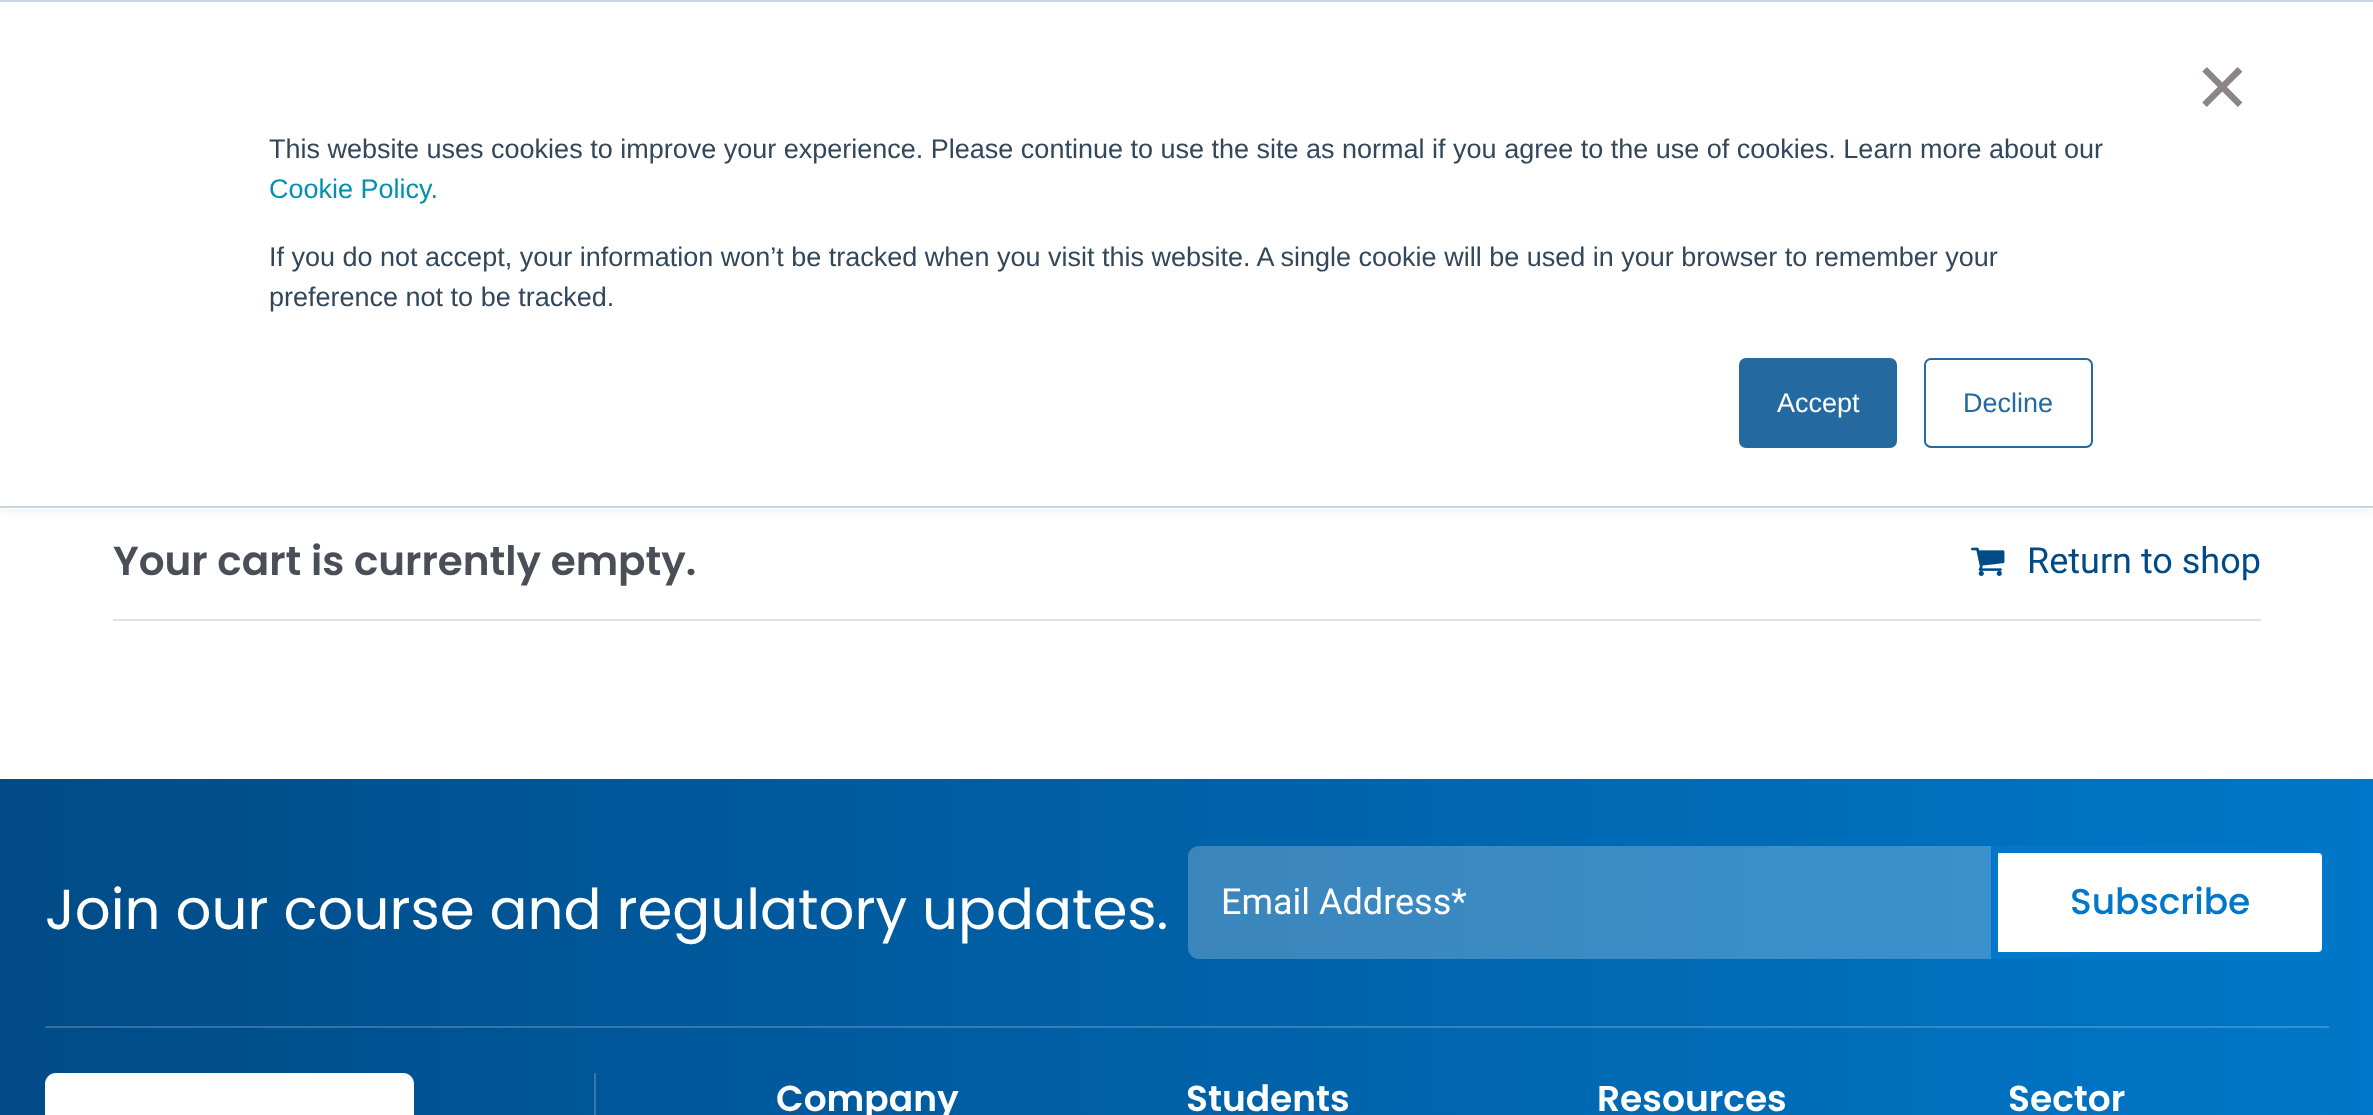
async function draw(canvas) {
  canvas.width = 2373;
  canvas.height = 1115;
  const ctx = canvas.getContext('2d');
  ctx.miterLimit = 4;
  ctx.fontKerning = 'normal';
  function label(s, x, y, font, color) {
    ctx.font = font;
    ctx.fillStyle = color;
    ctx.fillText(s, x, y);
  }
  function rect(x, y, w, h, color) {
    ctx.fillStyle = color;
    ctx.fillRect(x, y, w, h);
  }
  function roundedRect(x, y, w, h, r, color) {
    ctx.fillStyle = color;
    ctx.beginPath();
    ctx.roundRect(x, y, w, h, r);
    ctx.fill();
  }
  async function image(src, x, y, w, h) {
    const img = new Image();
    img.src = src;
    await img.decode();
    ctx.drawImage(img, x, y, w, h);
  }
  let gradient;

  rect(0, 0, 2373, 1115, '#fff');
  ctx.fillStyle = '#eaf0f6';
  ctx.filter = 'blur(5.5px)';
  ctx.beginPath();
  ctx.rect(0, 2, 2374, 509);
  ctx.fill();
  ctx.filter = 'none';
  rect(0, 2, 2373, 507, '#fff');
  rect(0, 0, 2373, 2, '#cbd6e2');
  rect(0, 506, 2373, 2, '#cbd6e2');
  label('×', 2196, 117, '90px Liberation Sans', '#8b8589');
  label('This website uses cookies to improve your experience. Please continue to use the site as normal if you agree to the use of cookies. Learn more about our', 269, 158, '27px Liberation Sans', '#33475b');
  label('Cookie Policy.', 269, 198, '27px Liberation Sans', '#0091ae');
  label('If you do not accept, your information won’t be tracked when you visit this website. A single cookie will be used in your browser to remember your', 269, 266, '27px Liberation Sans', '#33475b');
  label('preference not to be tracked.', 269, 306, '27px Liberation Sans', '#33475b');
  ctx.fillStyle = '#2469a0';
  ctx.beginPath();
  ctx.roundRect(1740, 359, 156, 88, 6);
  ctx.fill();
  ctx.strokeStyle = '#2469a0';
  ctx.lineWidth = 2;
  ctx.stroke();
  label('Accept', 1777, 412, '27px Liberation Sans', '#fff');
  ctx.beginPath();
  ctx.roundRect(1925, 359, 167, 88, 6);
  ctx.stroke();
  label('Decline', 1963, 412, '27px Liberation Sans', '#2469a0');
  rect(113, 619, 2148, 2, '#e2e2e2');
  label('Your cart is currently empty.', 113, 575, '600 40.5px Poppins', '#4a4e57');
  await image('assets/img1.png', 1971, 547, 34, 29);
  label('Return to shop', 2027, 573, '36px Roboto', '#004b87');
  gradient = ctx.createLinearGradient(0, 902, 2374, 902);
  gradient.addColorStop(0, '#004b87');
  gradient.addColorStop(1, '#0077c8');
  ctx.fillStyle = gradient;
  ctx.fillRect(0, 779, 2373, 247);
  label('Join our course and regulatory updates.', 45, 929, '56.2px Poppins', '#fff');
  ctx.fillStyle = '#ffffff3b';
  ctx.beginPath();
  ctx.roundRect(1188, 846, 803, 113, [11, 0, 0, 11]);
  ctx.fill();
  label('Email Address*', 1221, 914, '36px Roboto', '#fff');
  ctx.beginPath();
  ctx.roundRect(1994.5, 849.5, 331, 106, [0, 7.5, 7.5, 0]);
  ctx.fill();
  ctx.strokeStyle = '#0077c8';
  ctx.lineWidth = 7;
  ctx.stroke();
  label('Subscribe', 2070, 914, '500 36px Poppins', '#0077c8');
  gradient = ctx.createLinearGradient(0, 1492, 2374, 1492);
  gradient.addColorStop(0, '#004b87');
  gradient.addColorStop(1, '#0077c8');
  ctx.fillStyle = gradient;
  ctx.fillRect(0, 1026, 2373, 89);
  gradient = ctx.createLinearGradient(0, 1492, 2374, 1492);
  gradient.addColorStop(0, '#336f9f');
  gradient.addColorStop(1, '#3392d3');
  ctx.fillStyle = gradient;
  ctx.fillRect(45, 1026, 2284, 2);
  roundedRect(45, 1073, 369, 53, 11, '#fff');
  rect(594, 1073, 2, 42, '#3378ac');
  label('Company', 776, 1111, '600 36px Poppins', '#fff');
  label('Students', 1186, 1111, '600 36px Poppins', '#fff');
  label('Resources', 1597, 1111, '600 36px Poppins', '#fff');
  label('Sector', 2008, 1111, '600 36px Poppins', '#fff');
}

draw(document.querySelector('canvas'));
